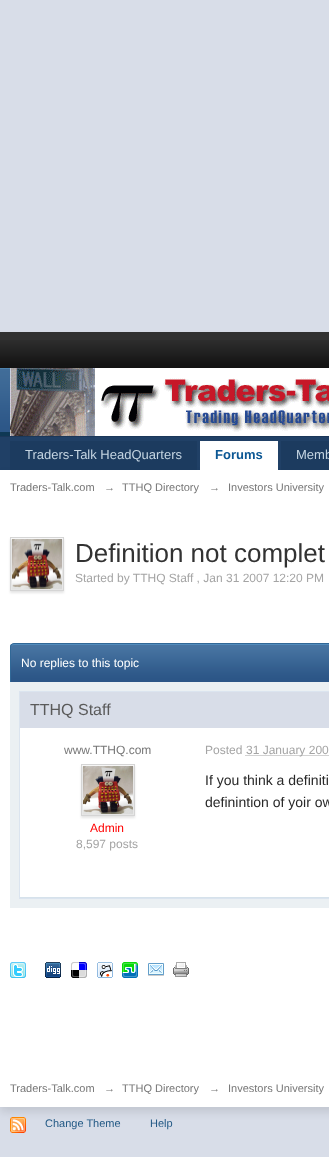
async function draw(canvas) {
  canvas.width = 329;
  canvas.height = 1157;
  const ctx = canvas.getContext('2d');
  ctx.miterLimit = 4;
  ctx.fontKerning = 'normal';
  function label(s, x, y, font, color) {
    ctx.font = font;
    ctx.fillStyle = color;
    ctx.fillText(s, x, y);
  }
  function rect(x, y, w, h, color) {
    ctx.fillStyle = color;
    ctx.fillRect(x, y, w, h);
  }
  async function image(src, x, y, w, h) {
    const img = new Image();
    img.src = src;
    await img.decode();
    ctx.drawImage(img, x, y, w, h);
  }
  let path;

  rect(0, 0, 329, 1157, '#d8dde8');
  rect(0, 332, 329, 8, '#323232');
  await image('assets/img1.png', 0, 340, 329, 28);
  rect(0, 432, 10, 4, '#0f3854');
  await image('assets/img2.png', 0, 368, 10, 64);
  rect(0, 436, 329, 1, '#1b3759');
  await image('assets/img3.png', 10, 368, 319, 68);
  rect(0, 437, 329, 33, '#204066');
  ctx.fillStyle = '#0000001a';
  ctx.filter = 'blur(4.5px)';
  ctx.beginPath();
  ctx.rect(0, 475, 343, 637);
  ctx.fill();
  ctx.filter = 'none';
  rect(10, 441, 187, 29, '#1c3b5f');
  label('Traders-Talk HeadQuarters', 25, 459, '13px Liberation Sans', '#c5d5e2');
  rect(200, 441, 78, 29, '#fff');
  label('Forums', 215, 459, 'bold 13px Liberation Sans', '#0b5794');
  rect(281, 441, 48, 29, '#1c3b5f');
  label('Memb', 296, 459, '13px Liberation Sans', '#c5d5e2');
  rect(0, 470, 329, 637, '#fff');
  label('Traders-Talk.com', 10, 491, '11px Liberation Sans', '#777');
  label('→', 104, 491, '11px Liberation Sans', '#777');
  label('TTHQ Directory', 122, 491, '11px Liberation Sans', '#777');
  label('→', 209, 491, '11px Liberation Sans', '#777');
  label('Investors University', 228, 491, '11px Liberation Sans', '#777');
  ctx.fillStyle = '#0000001a';
  ctx.filter = 'blur(1px)';
  ctx.beginPath();
  ctx.rect(10, 539, 54, 54);
  ctx.fill();
  ctx.filter = 'none';
  ctx.strokeStyle = '#d5d5d5';
  ctx.strokeRect(10.5, 537.5, 53, 53);
  await image('assets/img4.png', 12, 539, 50, 50);
  label('Definition not complet', 75, 562, '26px Liberation Sans', '#323232');
  label('Started by TTHQ Staff , Jan 31 2007 12:20 PM', 75, 582, '12px Liberation Sans', '#a4a4a4');
  rect(11, 679, 318, 3, '#2c5687');
  await image('assets/img5.png', 10, 644, 319, 35);
  ctx.fillStyle = '#528cbc';
  path = new Path2D('M14 645H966C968 645 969 646 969 648C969 646 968 644 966 644H14C12 644 11 646 11 648C11 646 12 645 14 645Z');
  ctx.fill(path);
  ctx.fillStyle = '#316897';
  path = new Path2D('M14 643H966C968 643 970 645 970 647V682H10V647C10 645 12 643 14 643ZM14 644H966C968 644 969 645 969 647V682H11V647C11 645 12 644 14 644Z');
  ctx.fill(path, 'evenodd');
  label('No replies to this topic', 21, 667, '12px Liberation Sans', '#fff');
  rect(10, 682, 319, 226, '#ebf0f3');
  rect(20, 728, 309, 169, '#fff');
  ctx.strokeStyle = '#dbe4ef';
  ctx.strokeRect(19.5, 691.5, 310, 207);
  rect(20, 897, 309, 1, '#d6e2eb');
  rect(20, 692, 309, 36, '#d8dde8');
  label('TTHQ Staff', 30, 715, '16px Liberation Sans', '#5a5a5a');
  label('www.TTHQ.com', 64, 754, '12px Liberation Sans', '#777');
  ctx.fillStyle = '#0000001a';
  ctx.filter = 'blur(1px)';
  ctx.beginPath();
  ctx.rect(81, 766, 54, 52);
  ctx.fill();
  ctx.filter = 'none';
  ctx.strokeStyle = '#d5d5d5';
  ctx.strokeRect(81.5, 764.5, 53, 51);
  await image('assets/img6.png', 83, 766, 50, 48);
  label('Admin', 90, 832, '12px Liberation Sans', '#f00');
  label('8,597 posts', 76, 848, '12px Liberation Sans', '#a4a4a4');
  label('Posted', 205, 754, '12px Liberation Sans', '#a4a4a4');
  path = new Path2D('M245.5 755.5H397');
  ctx.strokeStyle = '#a4a4a4';
  ctx.setLineDash([1, 1]);
  ctx.stroke(path);
  label('31 January 200', 246, 754, '12px Liberation Sans', '#a4a4a4');
  label('If you think a definiti', 205, 785, '14px Liberation Sans', '#282828');
  label('definintion of yoir ow', 205, 807, '14px Liberation Sans', '#282828');
  await image('assets/img7.png', 10, 962, 16, 16);
  await image('assets/img8.png', 45, 962, 16, 16);
  await image('assets/img9.png', 71, 962, 16, 16);
  await image('assets/img10.png', 97, 962, 16, 16);
  await image('assets/img11.png', 122, 962, 16, 16);
  await image('assets/img12.png', 148, 963, 16, 13);
  await image('assets/img13.png', 173, 962, 16, 15);
  label('Traders-Talk.com', 10, 1092, '11px Liberation Sans', '#777');
  label('→', 104, 1092, '11px Liberation Sans', '#777');
  label('TTHQ Directory', 122, 1092, '11px Liberation Sans', '#777');
  label('→', 209, 1092, '11px Liberation Sans', '#777');
  label('Investors University', 228, 1092, '11px Liberation Sans', '#777');
  await image('assets/img14.png', 10, 1117, 16, 16);
  label('Change Theme', 45, 1127, '11px Liberation Sans', '#225985');
  label('Help', 150, 1127, '11px Liberation Sans', '#225985');
}

draw(document.querySelector('canvas'));
